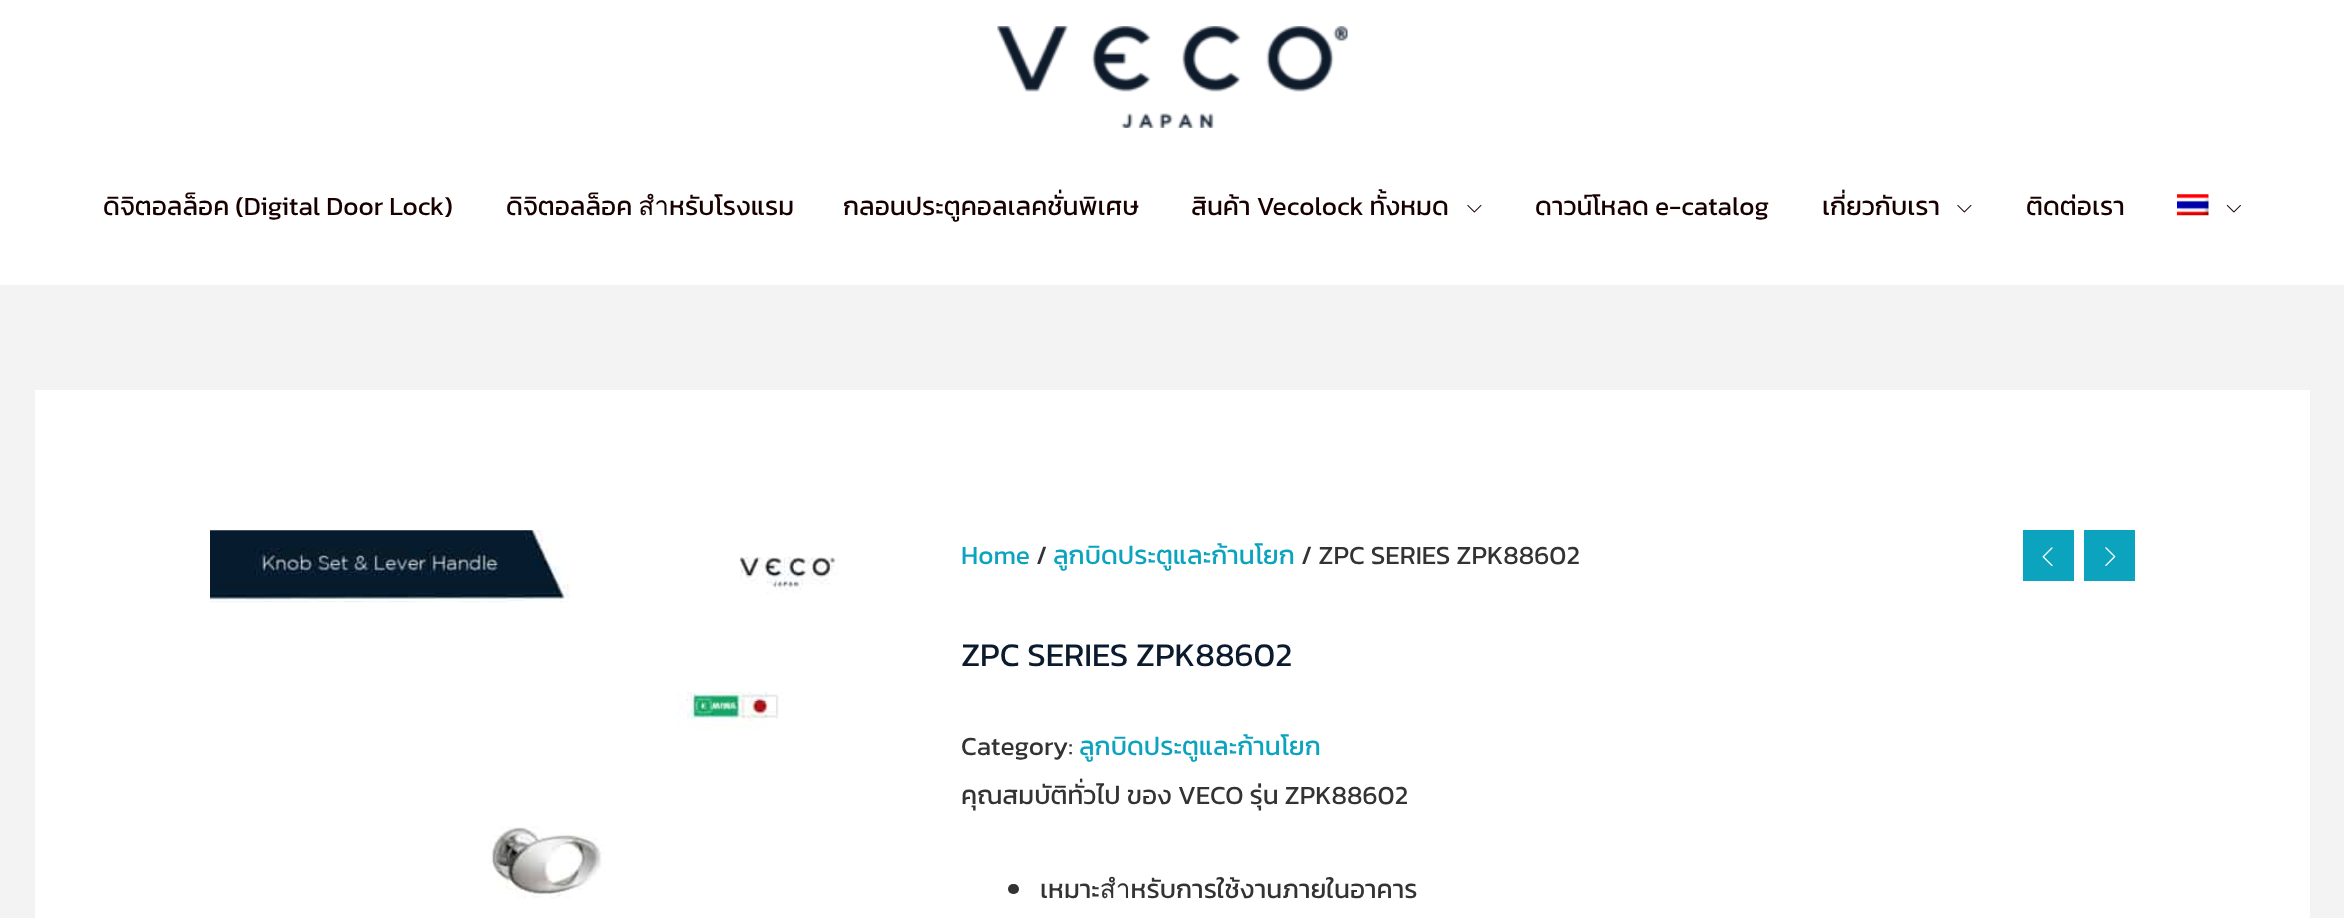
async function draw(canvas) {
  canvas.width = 2344;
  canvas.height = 918;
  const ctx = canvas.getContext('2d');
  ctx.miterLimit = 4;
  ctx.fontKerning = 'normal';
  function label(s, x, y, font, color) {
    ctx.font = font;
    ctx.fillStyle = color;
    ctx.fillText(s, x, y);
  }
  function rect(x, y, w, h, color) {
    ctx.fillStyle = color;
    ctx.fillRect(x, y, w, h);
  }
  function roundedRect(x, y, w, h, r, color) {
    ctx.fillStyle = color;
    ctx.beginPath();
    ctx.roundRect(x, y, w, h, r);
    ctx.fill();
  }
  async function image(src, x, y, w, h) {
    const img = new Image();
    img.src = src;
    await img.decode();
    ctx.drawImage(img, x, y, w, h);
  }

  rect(0, 0, 2344, 918, '#f3f3f3');
  rect(0, 0, 2344, 285, '#fff');
  await image('assets/img1.png', 997, 26, 351, 102);
  label('ดิจิตอลล็อค (Digital Door Lock)', 103, 215, '26.25px Kanit', '#190000');
  label('ดิจิตอลล็อค สำหรับโรงแรม', 506, 215, '26.25px Kanit', '#190000');
  label('กลอนประตูคอลเลคชั่นพิเศษ', 843, 215, '26.25px Kanit', '#190000');
  label('สินค้า Vecolock ทั้งหมด', 1191, 215, '26.25px Kanit', '#190000');
  await image('assets/img2.png', 1467, 204, 15, 9);
  label('ดาวน์โหลด e-catalog', 1535, 215, '26.25px Kanit', '#190000');
  label('เกี่ยวกับเรา', 1822, 215, '26.25px Kanit', '#190000');
  await image('assets/img2.png', 1957, 204, 15, 9);
  label('ติดต่อเรา', 2026, 215, '26.25px Kanit', '#190000');
  await image('assets/img3.png', 2177, 194, 32, 22);
  await image('assets/img4.png', 2226, 204, 15, 9);
  rect(35, 390, 2275, 528, '#fff');
  await image('assets/img5.png', 210, 530, 629, 369);
  label('Home', 961, 564, '26.25px Kanit', '#0ba3be');
  label('/', 1036, 564, '26.25px Kanit', '#333');
  label('ลูกบิดประตูและก้านโยก', 1053, 564, '26.25px Kanit', '#0ba3be');
  label('/ ZPC SERIES ZPK88602', 1301, 564, '26.25px Kanit', '#333');
  rect(2023, 530, 51, 51, '#0ba3be');
  await image('assets/img6.png', 2042, 547, 11, 20);
  rect(2084, 530, 51, 51, '#0ba3be');
  await image('assets/img7.png', 2105, 547, 11, 19);
  label('ZPC SERIES ZPK88602', 961, 666, '33.25px Kanit', '#0b1b2d');
  label('Category:', 961, 755, '26.25px Kanit', '#333');
  label('ลูกบิดประตูและก้านโยก', 1079, 755, '26.25px Kanit', '#0ba3be');
  label('คุณสมบัติทั่วไป ของ VECO รุ่น ZPK88602', 961, 804, '26.25px Kanit', '#333');
  roundedRect(1008, 884, 11, 10, 5, '#333');
  label('เหมาะสำหรับการใช้งานภายในอาคาร', 1040, 898, '26.25px Kanit', '#333');
}

draw(document.querySelector('canvas'));
